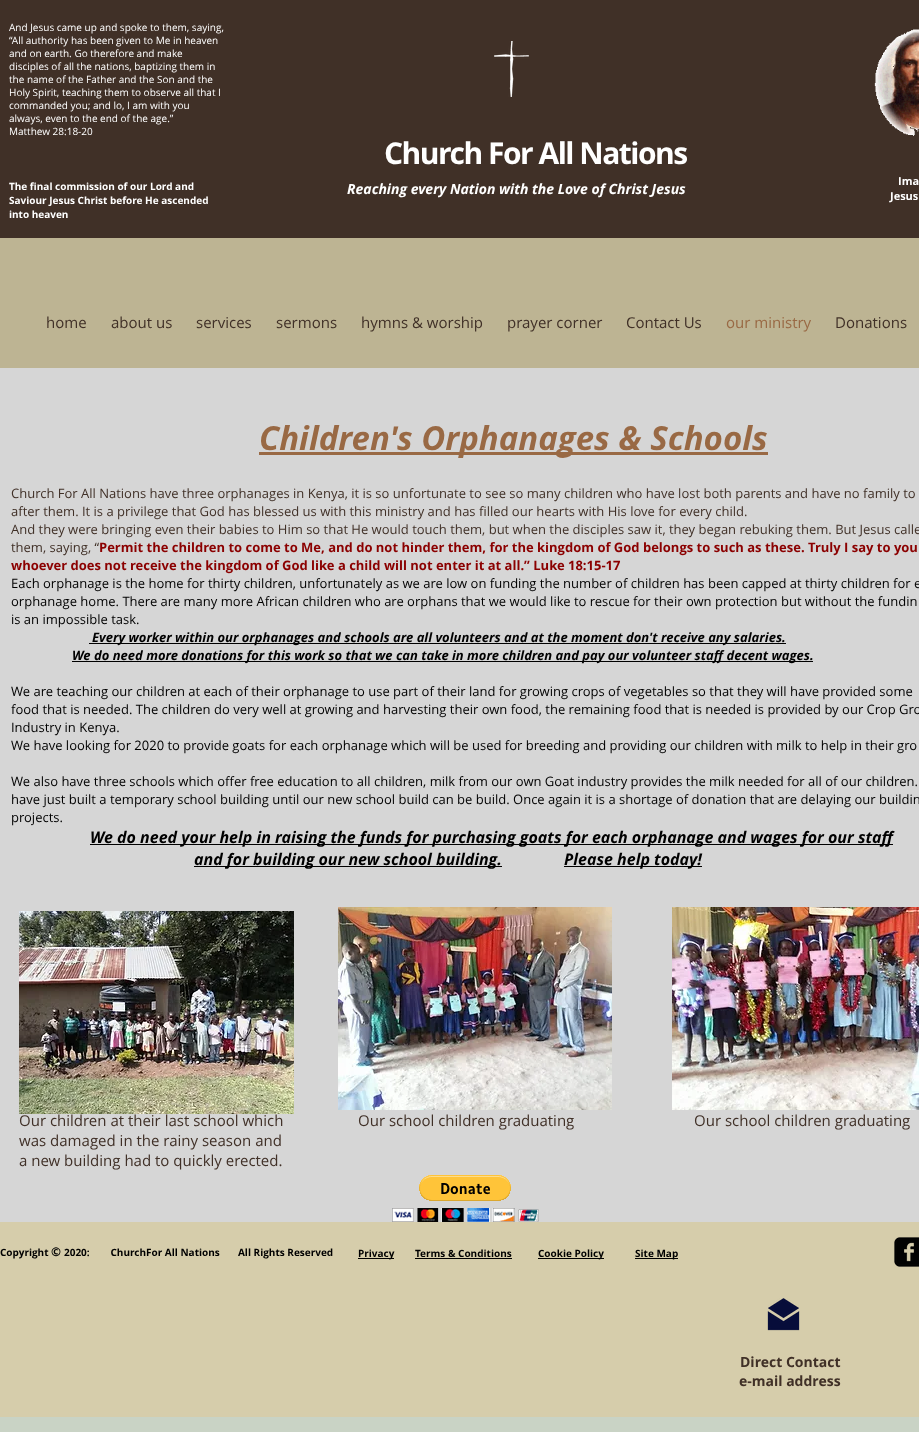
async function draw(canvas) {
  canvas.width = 919;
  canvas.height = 1432;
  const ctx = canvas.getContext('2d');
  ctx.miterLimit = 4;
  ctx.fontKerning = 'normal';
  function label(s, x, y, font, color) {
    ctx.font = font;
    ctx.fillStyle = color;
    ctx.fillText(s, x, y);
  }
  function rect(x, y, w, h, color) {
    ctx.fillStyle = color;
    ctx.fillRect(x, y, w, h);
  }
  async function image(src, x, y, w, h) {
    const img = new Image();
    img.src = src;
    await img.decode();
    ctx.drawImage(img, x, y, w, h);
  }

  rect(0, 0, 919, 1432, '#c9d3c5');
  rect(0, 238, 919, 130, '#bdb493');
  rect(0, 0, 919, 238, '#403027');
  label('And Jesus came up and spoke to them, saying,', 9, 31, '10px Open Sans', '#fff');
  label('“All authority has been given to Me in heaven', 9, 44, '10px Open Sans', '#fff');
  label('and on earth. Go therefore and make', 9, 57, '10px Open Sans', '#fff');
  label('disciples of all the nations, baptizing them in', 9, 70, '10px Open Sans', '#fff');
  label('the name of the Father and the Son and the', 9, 83, '10px Open Sans', '#fff');
  label('Holy Spirit, teaching them to observe all that I', 9, 96, '10px Open Sans', '#fff');
  label('commanded you; and lo, I am with you', 9, 109, '10px Open Sans', '#fff');
  label('always, even to the end of the age.”', 9, 122, '10px Open Sans', '#fff');
  label('Matthew 28:18-20', 9, 135, '10px Open Sans', '#fff');
  await image('assets/img1.png', 494, 41, 35, 56);
  await image('assets/img2.png', 874, 29, 45, 107);
  ctx.letterSpacing = '-1.5px';
  label('Church For All Nations', 384, 164, 'bold 30px Open Sans', '#fff');
  ctx.letterSpacing = '0px';
  label('The final commission of our Lord and', 9, 190, 'bold 10px Open Sans', '#fff');
  label('Saviour Jesus Christ before He ascended', 9, 204, 'bold 10px Open Sans', '#fff');
  label('into heaven', 9, 218, 'bold 10px Open Sans', '#fff');
  label('Reaching every Nation with the Love of Christ Jesus', 347, 194, 'italic bold 14px Open Sans', '#fff');
  label('Ima', 898, 185, 'bold 11px Open Sans', '#fff');
  label('Jesus', 890, 200, 'bold 11px Open Sans', '#fff');
  label('home', 46, 328, '15px Open Sans', '#403027');
  label('about us', 111, 328, '15px Open Sans', '#403027');
  label('services', 196, 328, '15px Open Sans', '#403027');
  label('sermons', 276, 328, '15px Open Sans', '#403027');
  label('hymns & worship', 361, 328, '15px Open Sans', '#403027');
  label('prayer corner', 507, 328, '15px Open Sans', '#403027');
  label('Contact Us', 626, 328, '15px Open Sans', '#403027');
  label('our ministry', 726, 328, '15px Open Sans', '#996944');
  label('Donations', 835, 328, '15px Open Sans', '#403027');
  rect(0, 368, 919, 854, '#d6d6d6');
  rect(259, 452, 509, 3, '#996944');
  label('Children\'s Orphanages & Schools', 259, 450, 'italic bold 33px Open Sans', '#996944');
  label('Church For All Nations have three orphanages in Kenya, it is so unfortunate to see so many children who have lost both parents and have no family to', 11, 498, '13px Open Sans', '#403027');
  label('after them. It is a privilege that God has blessed us with this ministry and has filled our hearts with His love for every child.', 11, 516, '13px Open Sans', '#403027');
  label('And they were bringing even their babies to Him so that He would touch them, but when the disciples saw it, they began rebuking them. But Jesus calle', 11, 534, '13px Open Sans', '#403027');
  label('them, saying, “', 11, 552, '13px Open Sans', '#403027');
  label('Permit the children to come to Me, and do not hinder them, for the kingdom of God belongs to such as these. Truly I say to you', 99, 552, 'bold 13px Open Sans', '#8b0000');
  label('whoever does not receive the kingdom of God like a child will not enter it at all.” Luke 18:15-17', 11, 570, 'bold 13px Open Sans', '#8b0000');
  label('Each orphanage is the home for thirty children, unfortunately as we are low on funding the number of children has been capped at thirty children for e', 11, 588, '13px Open Sans', '#000');
  label('orphanage home. There are many more African children who are orphans that we would like to rescue for their own protection but without the fundin', 11, 606, '13px Open Sans', '#000');
  label('is an impossible task.', 11, 624, '13px Open Sans', '#000');
  rect(89, 643, 697, 1, '#000');
  label('Every worker within our orphanages and schools are all volunteers and at the moment don\'t receive any salaries.', 92, 642, 'italic bold 13px Open Sans', '#000');
  rect(72, 661, 741, 1, '#000');
  label('We do need more donations for this work so that we can take in more children and pay our volunteer staff decent wages.', 72, 660, 'italic bold 13px Open Sans', '#000');
  label('We are teaching our children at each of their orphanage to use part of their land for growing crops of vegetables so that they will have provided some', 11, 696, '13px Open Sans', '#000');
  label('food that is needed. The children do very well at growing and harvesting their own food, the remaining food that is needed is provided by our Crop Gro', 11, 714, '13px Open Sans', '#000');
  label('Industry in Kenya.', 11, 732, '13px Open Sans', '#000');
  label('We have looking for 2020 to provide goats for each orphanage which will be used for breeding and providing our children with milk to help in their gro', 11, 750, '13px Open Sans', '#000');
  label('We also have three schools which offer free education to all children, milk from our own Goat industry provides the milk needed for all of our children.', 11, 786, '13px Open Sans', '#000');
  label('have just built a temporary school building until our new school build can be build. Once again it is a shortage of donation that are delaying our buildin', 11, 804, '13px Open Sans', '#000');
  label('projects.', 11, 822, '13px Open Sans', '#000');
  rect(90, 844, 803, 1, '#000');
  label('We do need your help in raising the funds for purchasing goats for each orphanage and wages for our staff', 90, 843, 'italic bold 16px Open Sans', '#000');
  rect(194, 866, 308, 1, '#000');
  label('and for building our new school building.', 194, 865, 'italic bold 16px Open Sans', '#000');
  rect(564, 866, 138, 1, '#000');
  label('Please help today!', 564, 865, 'italic bold 16px Open Sans', '#000');
  await image('assets/img3.png', 19, 911, 275, 203);
  await image('assets/img4.png', 338, 907, 274, 203);
  await image('assets/img5.png', 672, 907, 247, 203);
  label('Our children at their last school which', 19, 1126, '15px Open Sans', '#403027');
  label('was damaged in the rainy season and', 19, 1146, '15px Open Sans', '#403027');
  label('a new building had to quickly erected.', 19, 1166, '15px Open Sans', '#403027');
  label('Our school children graduating', 358, 1126, '15px Open Sans', '#403027');
  label('Our school children graduating', 694, 1126, '15px Open Sans', '#403027');
  await image('assets/img6.png', 392, 1175, 147, 47);
  rect(0, 1222, 919, 195, '#d6cdab');
  label('Copyright', 0, 1256, 'bold 10px Open Sans', '#000');
  label('©', 51, 1256, 'bold 12px Open Sans', '#000');
  label('2020:        ChurchFor All Nations       All Rights Reserved', 64, 1256, 'bold 10px Open Sans', '#000');
  rect(358, 1258, 36, 1, '#000');
  label('Privacy', 358, 1257, 'bold 10px Open Sans', '#000');
  label('Terms & Conditions', 415, 1257, 'bold 10px Open Sans', '#000');
  rect(415, 1258, 97, 1, '#000');
  rect(538, 1258, 66, 1, '#000');
  label('Cookie Policy', 538, 1257, 'bold 10px Open Sans', '#000');
  rect(635, 1258, 43, 1, '#000');
  label('Site Map', 635, 1257, 'bold 10px Open Sans', '#000');
  await image('assets/img7.png', 894, 1237, 25, 30);
  await image('assets/img8.png', 767, 1298, 33, 33);
  label('Direct Contact', 740, 1367, 'bold 14px Open Sans', '#403027');
  label('e-mail address', 739, 1386, 'bold 14px Open Sans', '#403027');
}

draw(document.querySelector('canvas'));
